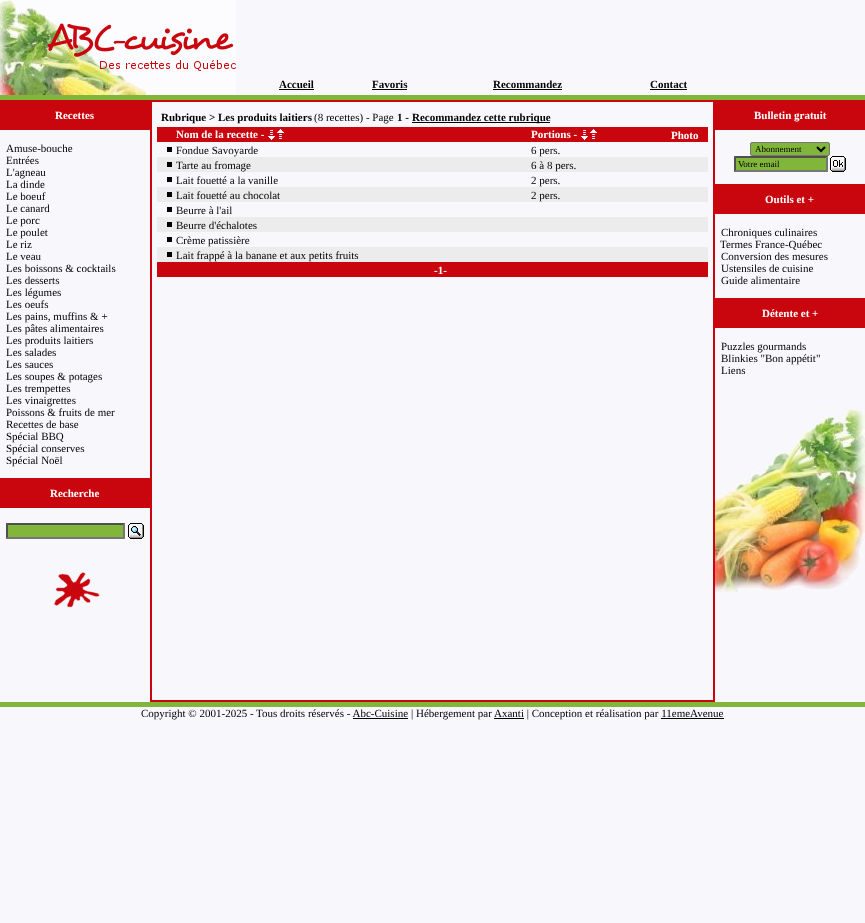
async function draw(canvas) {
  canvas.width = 865;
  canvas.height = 923;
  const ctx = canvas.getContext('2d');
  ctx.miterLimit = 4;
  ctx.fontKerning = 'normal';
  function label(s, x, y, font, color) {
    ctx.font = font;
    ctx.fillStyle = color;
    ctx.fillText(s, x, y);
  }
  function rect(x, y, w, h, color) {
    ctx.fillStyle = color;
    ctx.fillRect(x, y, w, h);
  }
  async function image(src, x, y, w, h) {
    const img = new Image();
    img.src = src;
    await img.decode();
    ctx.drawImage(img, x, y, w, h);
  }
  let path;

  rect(0, 0, 865, 923, '#f8f7fc');
  await image('assets/img1.png', 0, 0, 236, 95);
  label('Accueil', 279, 88, 'bold 11px Liberation Serif', '#000');
  rect(279, 89, 35, 1, '#000');
  label('Favoris', 372, 88, 'bold 11px Liberation Serif', '#000');
  rect(372, 89, 35, 1, '#000');
  label('Recommandez', 493, 88, 'bold 11px Liberation Serif', '#000');
  rect(493, 89, 69, 1, '#000');
  label('Contact', 650, 88, 'bold 11px Liberation Serif', '#000');
  rect(650, 89, 37, 1, '#000');
  rect(0, 95, 865, 5, '#82b63a');
  rect(0, 100, 150, 30, '#c9060e');
  label('Recettes', 55, 119, 'bold 11px Liberation Serif', '#fff');
  label('Amuse-bouche', 6, 152, '11px Liberation Serif', '#000');
  label('Entrées', 6, 164, '11px Liberation Serif', '#000');
  label('L\'agneau', 6, 176, '11px Liberation Serif', '#000');
  label('La dinde', 6, 188, '11px Liberation Serif', '#000');
  label('Le boeuf', 6, 200, '11px Liberation Serif', '#000');
  label('Le canard', 6, 212, '11px Liberation Serif', '#000');
  label('Le porc', 6, 224, '11px Liberation Serif', '#000');
  label('Le poulet', 6, 236, '11px Liberation Serif', '#000');
  label('Le riz', 6, 248, '11px Liberation Serif', '#000');
  label('Le veau', 6, 260, '11px Liberation Serif', '#000');
  label('Les boissons & cocktails', 6, 272, '11px Liberation Serif', '#000');
  label('Les desserts', 6, 284, '11px Liberation Serif', '#000');
  label('Les légumes', 6, 296, '11px Liberation Serif', '#000');
  label('Les oeufs', 6, 308, '11px Liberation Serif', '#000');
  label('Les pains, muffins & +', 6, 320, '11px Liberation Serif', '#000');
  label('Les pâtes alimentaires', 6, 332, '11px Liberation Serif', '#000');
  label('Les produits laitiers', 6, 344, '11px Liberation Serif', '#000');
  label('Les salades', 6, 356, '11px Liberation Serif', '#000');
  label('Les sauces', 6, 368, '11px Liberation Serif', '#000');
  label('Les soupes & potages', 6, 380, '11px Liberation Serif', '#000');
  label('Les trempettes', 6, 392, '11px Liberation Serif', '#000');
  label('Les vinaigrettes', 6, 404, '11px Liberation Serif', '#000');
  label('Poissons & fruits de mer', 6, 416, '11px Liberation Serif', '#000');
  label('Recettes de base', 6, 428, '11px Liberation Serif', '#000');
  label('Spécial BBQ', 6, 440, '11px Liberation Serif', '#000');
  label('Spécial conserves', 6, 452, '11px Liberation Serif', '#000');
  label('Spécial Noël', 6, 464, '11px Liberation Serif', '#000');
  rect(0, 478, 150, 30, '#c9060e');
  label('Recherche', 50, 497, 'bold 11px Liberation Serif', '#fff');
  rect(6, 523, 119, 16, '#82b63a');
  ctx.fillStyle = '#4f4f4f';
  path = new Path2D('M6 523H125L123 525H8Z');
  ctx.fill(path);
  ctx.fillStyle = '#767676';
  path = new Path2D('M125 523V539L123 537V525Z');
  ctx.fill(path);
  path = new Path2D('M125 539H6L8 537H123Z');
  ctx.fill(path);
  ctx.fillStyle = '#4f4f4f';
  path = new Path2D('M6 539V523L8 525V537Z');
  ctx.fill(path);
  await image('assets/img2.png', 128, 523, 16, 16);
  await image('assets/img3.png', 54, 572, 46, 36);
  ctx.strokeStyle = '#c9060e';
  ctx.strokeRect(150.5, 100.5, 564, 601);
  ctx.strokeRect(151.5, 101.5, 562, 599);
  label('Rubrique > Les produits laitiers', 161, 121, 'bold 11px Liberation Serif', '#000');
  label('(8 recettes) - Page', 314, 121, '11px Liberation Serif', '#000');
  label('1 -', 397, 121, 'bold 11px Liberation Serif', '#000');
  rect(412, 122, 138, 1, '#000');
  label('Recommandez cette rubrique', 412, 121, 'bold 11px Liberation Serif', '#000');
  rect(157, 127, 551, 15, '#c9060e');
  label('Nom de la recette -', 176, 138, 'bold 11px Liberation Serif', '#fff');
  await image('assets/img4.png', 268, 130, 7, 10);
  await image('assets/img5.png', 277, 129, 7, 10);
  label('Portions -', 531, 138, 'bold 11px Liberation Serif', '#fff');
  await image('assets/img4.png', 581, 130, 7, 10);
  await image('assets/img5.png', 590, 129, 7, 10);
  label('Photo', 671, 139, 'bold 11px Liberation Serif', '#fff');
  rect(167, 147, 5, 5, '#000');
  label('Fondue Savoyarde', 176, 154, '11px Liberation Serif', '#000');
  label('6 pers.', 531, 154, '11px Liberation Serif', '#000');
  rect(157, 157, 551, 15, '#ececec');
  rect(167, 162, 5, 5, '#000');
  label('Tarte au fromage', 176, 169, '11px Liberation Serif', '#000');
  label('6 à 8 pers.', 531, 169, '11px Liberation Serif', '#000');
  rect(167, 177, 5, 5, '#000');
  label('Lait fouetté a la vanille', 176, 184, '11px Liberation Serif', '#000');
  label('2 pers.', 531, 184, '11px Liberation Serif', '#000');
  rect(157, 187, 551, 15, '#ececec');
  rect(167, 192, 5, 5, '#000');
  label('Lait fouetté au chocolat', 176, 199, '11px Liberation Serif', '#000');
  label('2 pers.', 531, 199, '11px Liberation Serif', '#000');
  rect(167, 207, 5, 5, '#000');
  label('Beurre à l\'ail', 176, 214, '11px Liberation Serif', '#000');
  rect(157, 217, 551, 15, '#ececec');
  rect(167, 222, 5, 5, '#000');
  label('Beurre d\'échalotes', 176, 229, '11px Liberation Serif', '#000');
  rect(167, 237, 5, 5, '#000');
  label('Crème patissière', 176, 244, '11px Liberation Serif', '#000');
  rect(157, 247, 551, 15, '#ececec');
  rect(167, 252, 5, 5, '#000');
  label('Lait frappé à la banane et aux petits fruits', 176, 259, '11px Liberation Serif', '#000');
  rect(157, 262, 551, 15, '#c9060e');
  label('-1-', 434, 274, 'bold 11px Liberation Serif', '#fff');
  rect(715, 100, 150, 30, '#c9060e');
  label('Bulletin gratuit', 754, 119, 'bold 11px Liberation Serif', '#fff');
  ctx.fillStyle = '#82b63a';
  ctx.beginPath();
  ctx.roundRect(750.5, 142.5, 79, 13, 1.5);
  ctx.fill();
  ctx.strokeStyle = '#767676';
  ctx.stroke();
  path = new Path2D('M817 147L821 151L825 147');
  ctx.strokeStyle = '#000';
  ctx.lineWidth = 2;
  ctx.stroke(path);
  label('Abonnement', 755, 152, '9px Liberation Serif', '#000');
  rect(734, 156, 94, 16, '#82b63a');
  ctx.fillStyle = '#4f4f4f';
  path = new Path2D('M734 156H828L826 158H736Z');
  ctx.fill(path);
  ctx.fillStyle = '#767676';
  path = new Path2D('M828 156V172L826 170V158Z');
  ctx.fill(path);
  path = new Path2D('M828 172H734L736 170H826Z');
  ctx.fill(path);
  ctx.fillStyle = '#4f4f4f';
  path = new Path2D('M734 172V156L736 158V170Z');
  ctx.fill(path);
  label('Votre email', 738, 167, '9px Liberation Serif', '#000');
  await image('assets/img6.png', 830, 156, 16, 16);
  rect(715, 184, 150, 30, '#c9060e');
  label('Outils et +', 765, 203, 'bold 11px Liberation Serif', '#fff');
  label('Chroniques culinaires', 721, 236, '11px Liberation Serif', '#000');
  label('Termes France-Québec', 720, 248, '11px Liberation Serif', '#000');
  label('Conversion des mesures', 721, 260, '11px Liberation Serif', '#000');
  label('Ustensiles de cuisine', 721, 272, '11px Liberation Serif', '#000');
  label('Guide alimentaire', 721, 284, '11px Liberation Serif', '#000');
  rect(715, 298, 150, 30, '#c9060e');
  label('Détente et +', 762, 317, 'bold 11px Liberation Serif', '#fff');
  label('Puzzles gourmands', 721, 350, '11px Liberation Serif', '#000');
  label('Blinkies "Bon appétit"', 721, 362, '11px Liberation Serif', '#000');
  label('Liens', 721, 374, '11px Liberation Serif', '#000');
  await image('assets/img7.png', 715, 405, 150, 187);
  rect(0, 702, 865, 5, '#82b63a');
  label('Copyright © 2001-2025 - Tous droits réservés - Abc-Cuisine', 141, 717, '11px Liberation Serif', '#000');
  label('| Hébergement par', 411, 717, '11px Liberation Serif', '#000');
  rect(494, 718, 30, 1, '#000');
  label('Axanti | Conception et réalisation par 11emeAvenue', 494, 717, '11px Liberation Serif', '#000');
  rect(353, 718, 55, 1, '#000');
  rect(661, 718, 63, 1, '#000');
}

draw(document.querySelector('canvas'));
